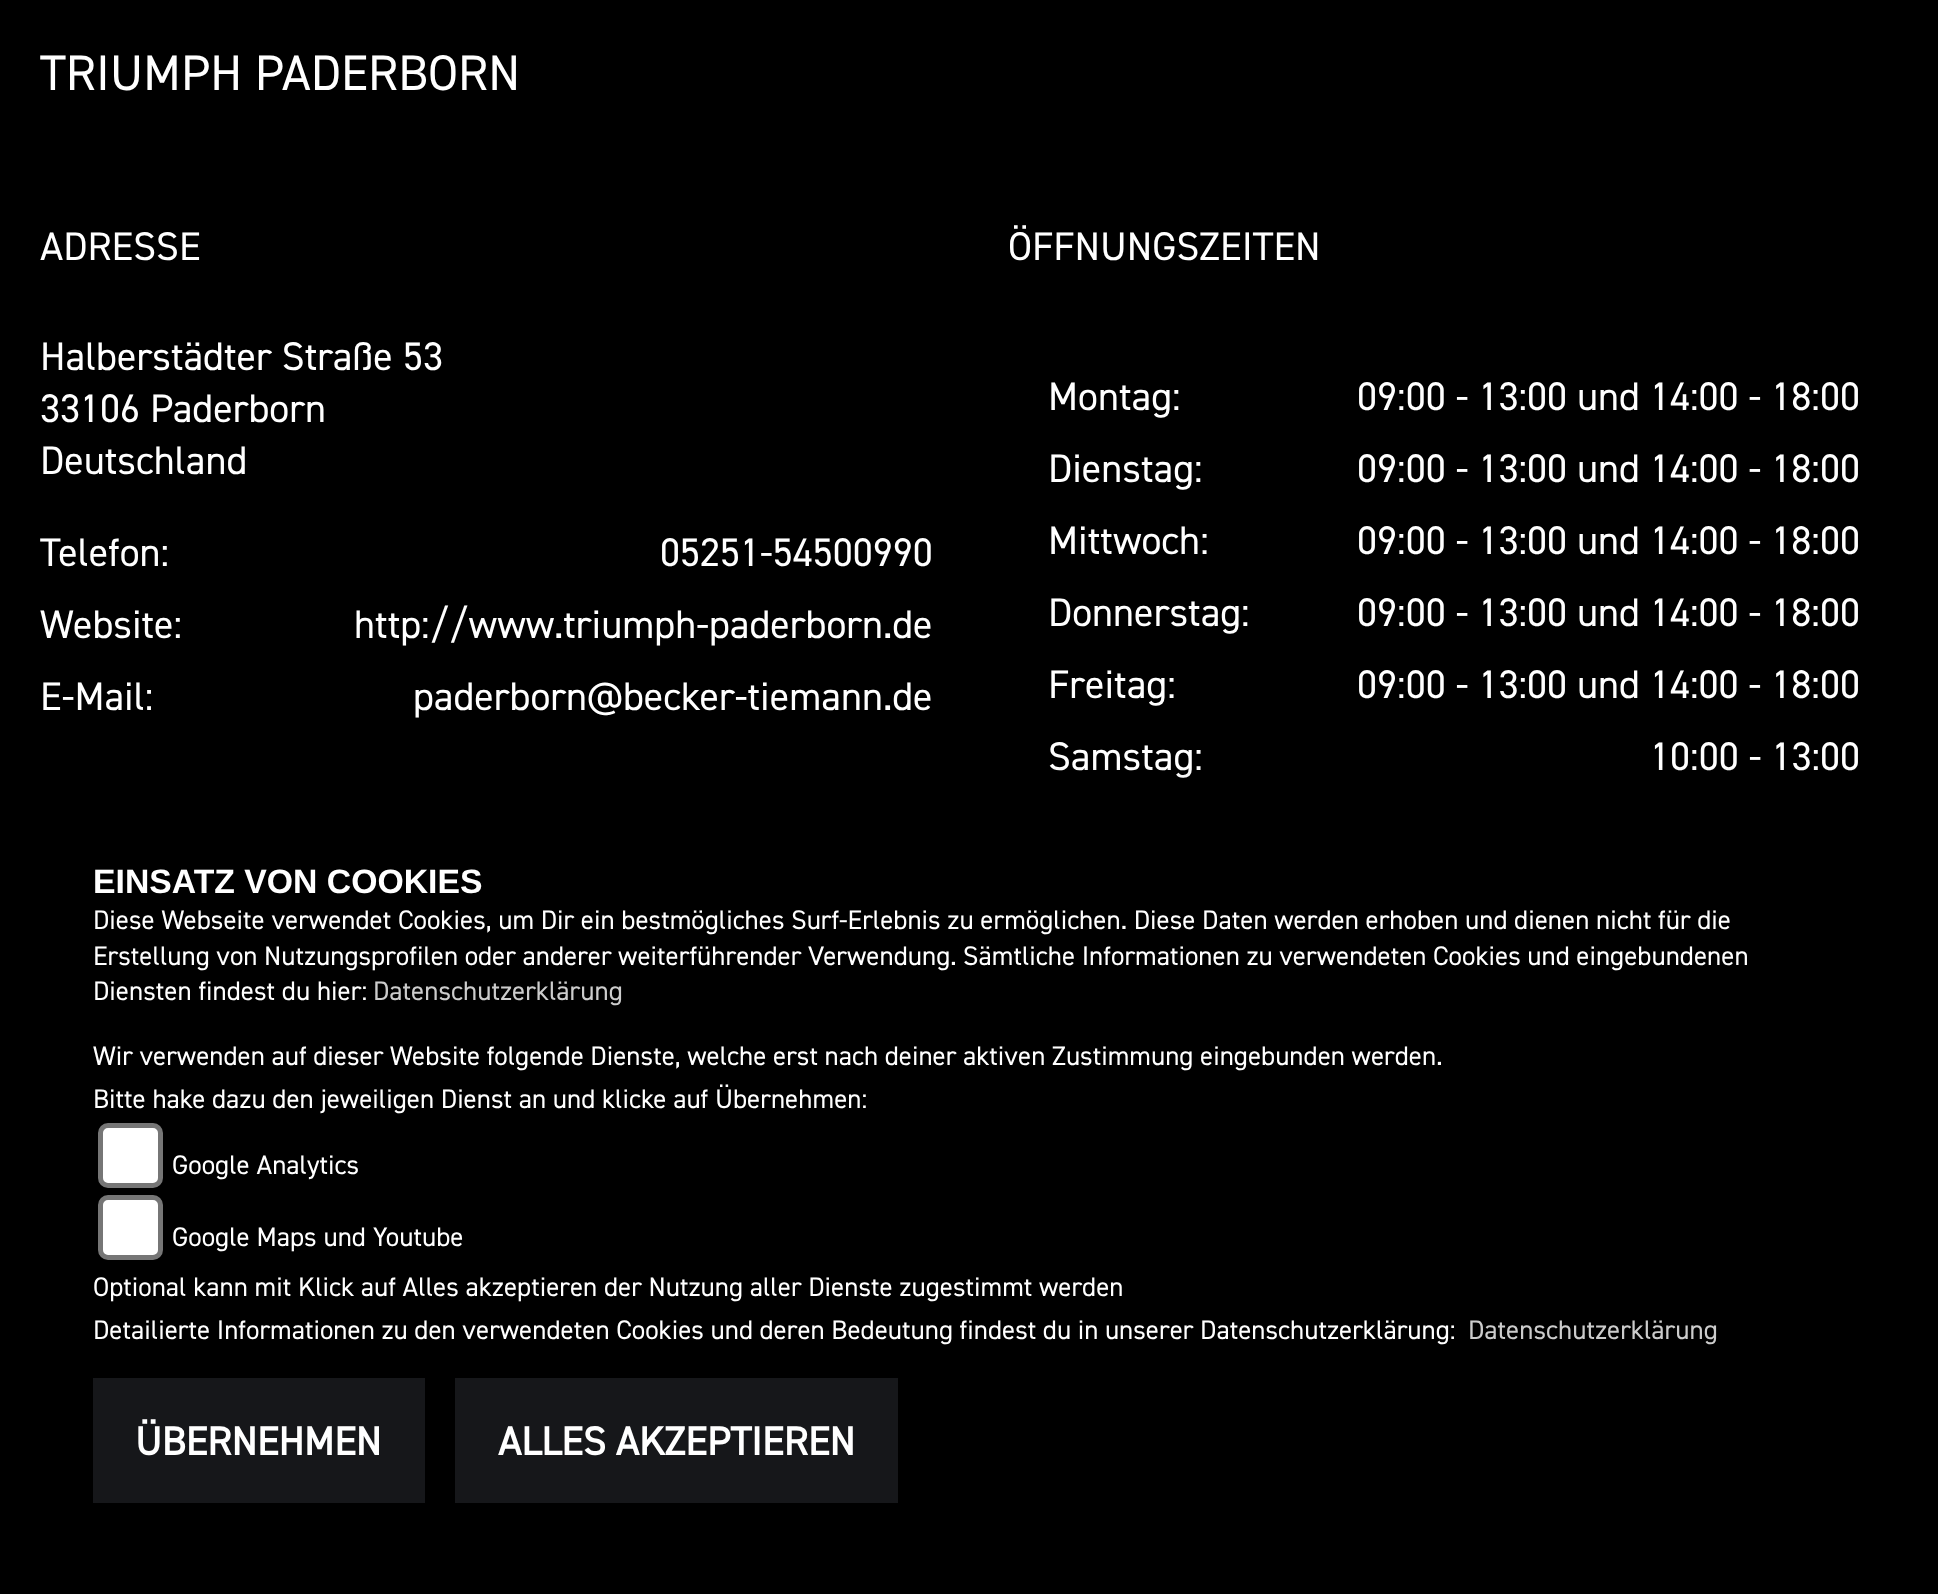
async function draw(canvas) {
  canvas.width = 1938;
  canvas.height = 1594;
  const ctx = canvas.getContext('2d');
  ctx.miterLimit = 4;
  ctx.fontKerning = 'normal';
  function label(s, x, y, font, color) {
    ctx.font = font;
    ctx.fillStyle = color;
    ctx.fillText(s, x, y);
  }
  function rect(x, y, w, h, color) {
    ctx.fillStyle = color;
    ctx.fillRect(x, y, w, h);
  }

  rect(0, 0, 1938, 1594, '#000');
  label('TRIUMPH PADERBORN', 40, 90, '50px "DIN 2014"', '#fff');
  label('ADRESSE', 40, 260, '40px "DIN 2014"', '#fff');
  label('Halberstädter Straße 53', 40, 370, '40px "DIN 2014"', '#fff');
  label('33106 Paderborn', 40, 422, '40px "DIN 2014"', '#fff');
  label('Deutschland', 40, 474, '40px "DIN 2014"', '#fff');
  label('Telefon:', 40, 566, '40px "DIN 2014"', '#fff');
  label('05251-54500990', 660, 566, '40px "DIN 2014"', '#fff');
  label('Website:', 40, 638, '40px "DIN 2014"', '#fff');
  label('http://www.triumph-paderborn.de', 354, 638, '40px "DIN 2014"', '#fff');
  label('E-Mail:', 40, 710, '40px "DIN 2014"', '#fff');
  label('paderborn@becker-tiemann.de', 413, 710, '40px "DIN 2014"', '#fff');
  label('ÖFFNUNGSZEITEN', 1008, 260, '40px "DIN 2014"', '#fff');
  label('Montag:', 1048, 410, '40px "DIN 2014"', '#fff');
  label('09:00 - 13:00 und 14:00 - 18:00', 1357, 410, '40px "DIN 2014"', '#fff');
  label('Dienstag:', 1048, 482, '40px "DIN 2014"', '#fff');
  label('09:00 - 13:00 und 14:00 - 18:00', 1357, 482, '40px "DIN 2014"', '#fff');
  label('Mittwoch:', 1048, 554, '40px "DIN 2014"', '#fff');
  label('09:00 - 13:00 und 14:00 - 18:00', 1357, 554, '40px "DIN 2014"', '#fff');
  label('Donnerstag:', 1048, 626, '40px "DIN 2014"', '#fff');
  label('09:00 - 13:00 und 14:00 - 18:00', 1357, 626, '40px "DIN 2014"', '#fff');
  label('Freitag:', 1048, 698, '40px "DIN 2014"', '#fff');
  label('09:00 - 13:00 und 14:00 - 18:00', 1357, 698, '40px "DIN 2014"', '#fff');
  label('Samstag:', 1048, 770, '40px "DIN 2014"', '#fff');
  label('10:00 - 13:00', 1650, 770, '40px "DIN 2014"', '#fff');
  ctx.save();
  ctx.beginPath();
  ctx.rect(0, 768, 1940, 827);
  ctx.clip();
  ctx.fillStyle = '#000';
  ctx.filter = 'blur(62.5px)';
  ctx.beginPath();
  ctx.rect(63, 885, 1815, 703);
  ctx.fill();
  ctx.filter = 'none';
  ctx.restore();
  label('EINSATZ VON COOKIES', 93, 893, 'bold 33.75px Liberation Sans', '#fff');
  ctx.wordSpacing = '-0.1px';
  label('Diese Webseite verwendet Cookies, um Dir ein bestmögliches Surf-Erlebnis zu ermöglichen. Diese Daten werden erhoben und dienen nicht für die', 93, 929, '27px "DIN 2014"', '#fff');
  ctx.wordSpacing = '-0.25px';
  label('Erstellung von Nutzungsprofilen oder anderer weiterführender Verwendung. Sämtliche Informationen zu verwendeten Cookies und eingebundenen', 93, 965, '27px "DIN 2014"', '#fff');
  ctx.wordSpacing = '0px';
  label('Diensten findest du hier:', 93, 1000, '27px "DIN 2014"', '#fff');
  label('Datenschutzerklärung', 373, 1000, '27px "DIN 2014"', '#ccc');
  ctx.wordSpacing = '-0.2px';
  label('Wir verwenden auf dieser Website folgende Dienste, welche erst nach deiner aktiven Zustimmung eingebunden werden.', 93, 1065, '27px "DIN 2014"', '#fff');
  ctx.wordSpacing = '-0.1px';
  label('Bitte hake dazu den jeweiligen Dienst an und klicke auf Übernehmen:', 93, 1108, '27px "DIN 2014"', '#fff');
  ctx.beginPath();
  ctx.roundRect(100.5, 1125.5, 60, 60, 7.5);
  ctx.fill();
  ctx.strokeStyle = '#767676';
  ctx.lineWidth = 5;
  ctx.stroke();
  ctx.wordSpacing = '0px';
  label('Google Analytics', 172, 1174, '27px "DIN 2014"', '#fff');
  ctx.beginPath();
  ctx.roundRect(100.5, 1197.5, 60, 60, 7.5);
  ctx.fill();
  ctx.stroke();
  label('Google Maps und Youtube', 172, 1246, '27px "DIN 2014"', '#fff');
  ctx.wordSpacing = '-0.1px';
  label('Optional kann mit Klick auf Alles akzeptieren der Nutzung aller Dienste zugestimmt werden', 93, 1296, '27px "DIN 2014"', '#fff');
  ctx.wordSpacing = '-0.2px';
  label('Detailierte Informationen zu den verwendeten Cookies und deren Bedeutung findest du in unserer Datenschutzerklärung:', 93, 1339, '27px "DIN 2014"', '#fff');
  ctx.wordSpacing = '0px';
  label('Datenschutzerklärung', 1468, 1339, '27px "DIN 2014"', '#ccc');
  rect(93, 1378, 332, 125, '#16171a');
  label('ÜBERNEHMEN', 135, 1455, 'bold 40px "DIN 2014"', '#fff');
  rect(455, 1378, 443, 125, '#16171a');
  label('ALLES AKZEPTIEREN', 498, 1455, 'bold 40px "DIN 2014"', '#fff');
}

draw(document.querySelector('canvas'));
